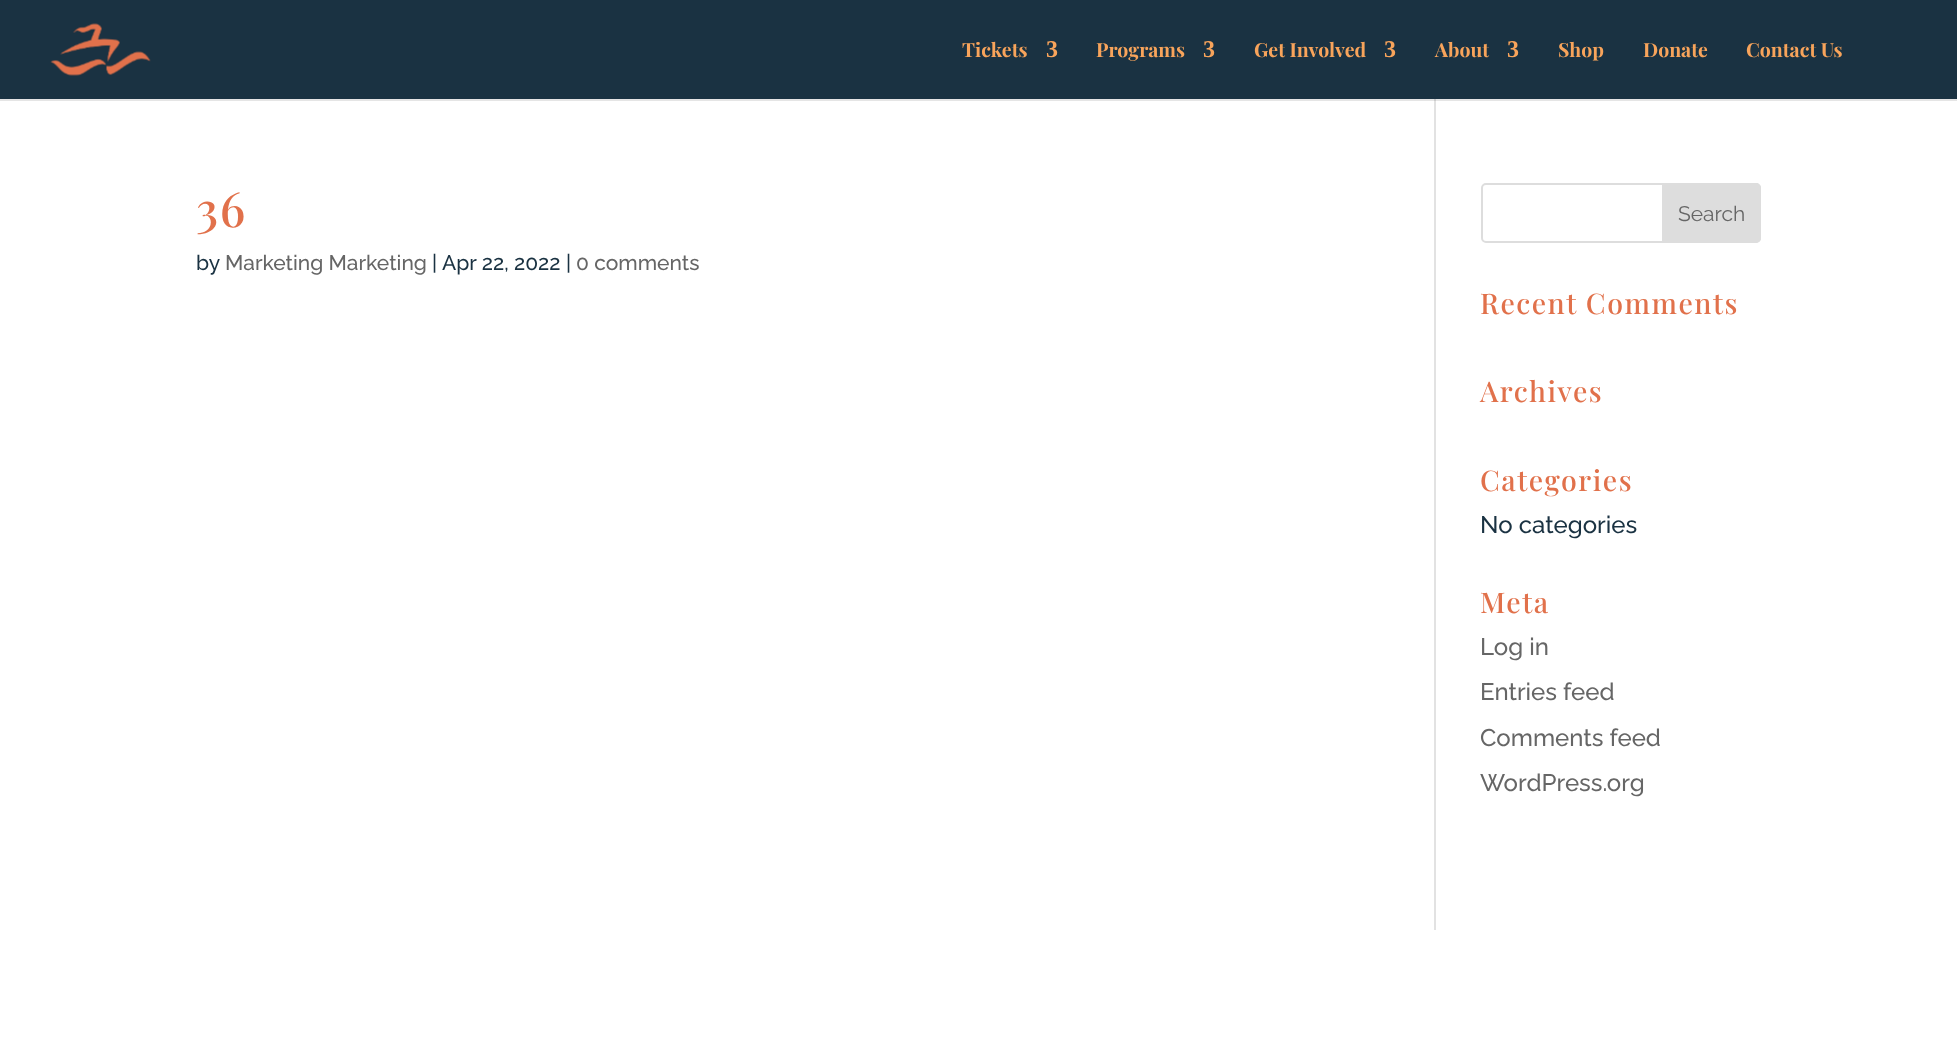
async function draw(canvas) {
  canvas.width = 1957;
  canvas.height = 1054;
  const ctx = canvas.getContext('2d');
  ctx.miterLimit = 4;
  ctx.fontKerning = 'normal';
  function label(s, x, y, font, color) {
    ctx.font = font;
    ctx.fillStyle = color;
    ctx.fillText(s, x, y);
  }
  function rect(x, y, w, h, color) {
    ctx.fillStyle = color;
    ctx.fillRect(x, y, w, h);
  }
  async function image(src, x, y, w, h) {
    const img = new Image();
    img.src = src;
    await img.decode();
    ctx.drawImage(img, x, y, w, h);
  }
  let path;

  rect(0, 0, 1957, 1054, '#fff');
  rect(1434, 96, 2, 834, '#e2e2e2');
  ctx.fillStyle = '#0000001a';
  path = new Path2D('M0 99V101H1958V2V99Z');
  ctx.fill(path);
  rect(0, 0, 1957, 99, '#1a3242');
  await image('assets/img1.png', 50, 23, 101, 53);
  label('Tickets', 962, 57, 'bold 19.5px Playfair Display', '#f8a45b');
  label('3', 1046, 57, 'bold 24px Liberation Serif', '#f8a45b');
  label('Programs', 1096, 57, 'bold 19.5px Playfair Display', '#f8a45b');
  label('3', 1203, 57, 'bold 24px Liberation Serif', '#f8a45b');
  label('Get Involved', 1254, 57, 'bold 19.5px Playfair Display', '#f8a45b');
  label('3', 1384, 57, 'bold 24px Liberation Serif', '#f8a45b');
  label('About', 1435, 57, 'bold 19.5px Playfair Display', '#f8a45b');
  label('3', 1507, 57, 'bold 24px Liberation Serif', '#f8a45b');
  label('Shop', 1558, 57, 'bold 19.5px Playfair Display', '#f8a45b');
  label('Donate', 1643, 57, 'bold 19.5px Playfair Display', '#f8a45b');
  label('Contact Us', 1746, 57, 'bold 19.5px Playfair Display', '#f8a45b');
  ctx.letterSpacing = '1.5px';
  label('36', 196, 227, '500 48px Playfair Display', '#e1714b');
  ctx.letterSpacing = '0px';
  label('by', 196, 270, '500 21px Raleway', '#1a3242');
  label('Marketing Marketing', 225, 270, '500 21px Raleway', '#666');
  label('|', 432, 270, '500 21px Raleway', '#1a3242');
  label('Apr 22, 2022 |', 442, 270, '500 21px Raleway', '#1a3242');
  label('0 comments', 576, 270, '500 21px Raleway', '#666');
  ctx.beginPath();
  ctx.roundRect(1482, 184, 278, 58, 4);
  ctx.strokeStyle = '#ddd';
  ctx.lineWidth = 2;
  ctx.stroke();
  ctx.fillStyle = '#ddd';
  ctx.beginPath();
  ctx.roundRect(1663, 184, 97, 58, [0, 4, 4, 0]);
  ctx.fill();
  ctx.stroke();
  label('Search', 1678, 221, '21px Raleway', '#666');
  ctx.letterSpacing = '1.5px';
  label('Recent Comments', 1480, 314, '500 28.5px Playfair Display', '#e1714b');
  label('Archives', 1480, 402, '500 28.5px Playfair Display', '#e1714b');
  label('Categories', 1480, 491, '500 28.5px Playfair Display', '#e1714b');
  ctx.letterSpacing = '0px';
  label('No categories', 1480, 533, '500 24px Raleway', '#1a3242');
  ctx.letterSpacing = '1.5px';
  label('Meta', 1480, 613, '500 28.5px Playfair Display', '#e1714b');
  ctx.letterSpacing = '0px';
  label('Log in', 1480, 655, '500 24px Raleway', '#666');
  label('Entries feed', 1480, 700, '500 24px Raleway', '#666');
  label('Comments feed', 1480, 746, '500 24px Raleway', '#666');
  label('WordPress.org', 1480, 791, '500 24px Raleway', '#666');
}

draw(document.querySelector('canvas'));
